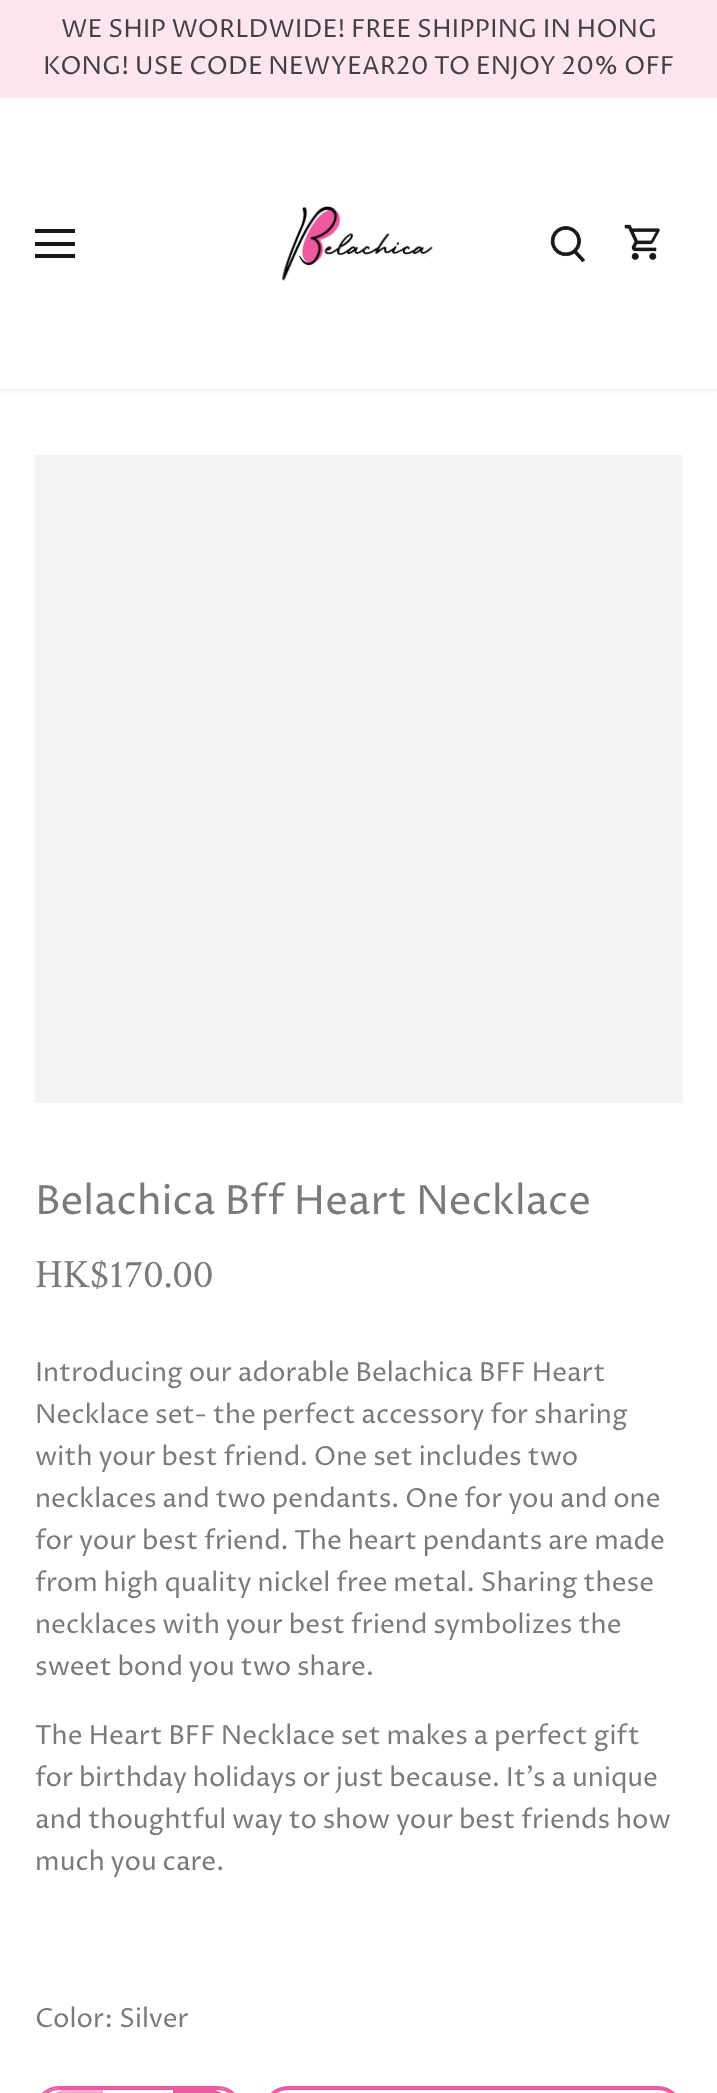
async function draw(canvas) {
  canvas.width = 717;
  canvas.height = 2093;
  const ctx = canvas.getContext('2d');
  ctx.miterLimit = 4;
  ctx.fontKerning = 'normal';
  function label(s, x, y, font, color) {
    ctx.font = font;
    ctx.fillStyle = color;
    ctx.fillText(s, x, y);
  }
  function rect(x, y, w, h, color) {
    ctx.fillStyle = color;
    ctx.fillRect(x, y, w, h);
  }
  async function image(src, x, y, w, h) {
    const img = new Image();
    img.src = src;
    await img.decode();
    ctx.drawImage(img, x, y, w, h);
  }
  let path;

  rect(0, 0, 717, 2093, '#fff');
  ctx.fillStyle = '#00000014';
  ctx.filter = 'blur(2.5px)';
  ctx.beginPath();
  ctx.rect(-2, 96, 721, 294);
  ctx.fill();
  ctx.filter = 'none';
  rect(0, 0, 717, 98, '#ffe6ee');
  label('WE SHIP WORLDWIDE! FREE SHIPPING IN HONG', 61, 37, '24.95px Proza Libre', '#414141');
  label('KONG! USE CODE NEWYEAR20 TO ENJOY 20% OFF', 43, 74, '24.95px Proza Libre', '#414141');
  rect(0, 98, 717, 291, '#fff');
  rect(35, 229, 40, 4, '#191817');
  rect(35, 242, 40, 4, '#191817');
  rect(35, 254, 40, 4, '#191817');
  await image('assets/img1.png', 282, 206, 151, 75);
  await image('assets/img2.png', 550, 226, 35, 37);
  await image('assets/img3.png', 624, 224, 36, 36);
  rect(35, 455, 648, 648, '#f3f3f3');
  label('Belachica Bff Heart Necklace', 35, 1214, '40.25px Proza Libre', '#787a7c');
  label('HK$170.00', 35, 1287, '40.25px Crimson Text', '#787a7c');
  label('Introducing our adorable Belachica BFF Heart', 35, 1381, '26.25px Proza Libre', '#787a7c');
  label('Necklace set- the perfect accessory for sharing', 35, 1423, '26.25px Proza Libre', '#787a7c');
  label('with your best friend. One set includes two', 35, 1465, '26.25px Proza Libre', '#787a7c');
  label('necklaces and two pendants. One for you and one', 35, 1507, '26.25px Proza Libre', '#787a7c');
  label('for your best friend. The heart pendants are made', 35, 1549, '26.25px Proza Libre', '#787a7c');
  label('from high quality nickel free metal. Sharing these', 35, 1591, '26.25px Proza Libre', '#787a7c');
  label('necklaces with your best friend symbolizes the', 35, 1633, '26.25px Proza Libre', '#787a7c');
  label('sweet bond you two share.', 35, 1675, '26.25px Proza Libre', '#787a7c');
  label('The Heart BFF Necklace set makes a perfect gift', 35, 1744, '26.25px Proza Libre', '#787a7c');
  label('for birthday holidays or just because. It\'s a unique', 35, 1786, '26.25px Proza Libre', '#787a7c');
  label('and thoughtful way to show your best friends how', 35, 1828, '26.25px Proza Libre', '#787a7c');
  label('much you care.', 35, 1870, '26.25px Proza Libre', '#787a7c');
  label('Color: Silver', 35, 2027, '26.25px Proza Libre', '#787a7c');
  ctx.beginPath();
  ctx.roundRect(38, 2089, 201, 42, 35.5);
  ctx.strokeStyle = '#ee59a1';
  ctx.lineWidth = 2;
  ctx.stroke();
  ctx.beginPath();
  ctx.roundRect(36, 2087, 205, 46, 37.5);
  ctx.stroke();
  ctx.fillStyle = '#ee59a180';
  path = new Path2D('M73.5 2088H103V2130H73.5C53.5 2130 37 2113.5 37 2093.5V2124.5C37 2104.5 53.5 2088 73.5 2088Z');
  ctx.fill(path);
  ctx.fillStyle = '#ee59a1';
  path = new Path2D('M173 2088H203.5C223.5 2088 240 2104.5 240 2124.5V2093.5C240 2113.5 223.5 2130 203.5 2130H173Z');
  ctx.fill(path);
  ctx.beginPath();
  ctx.roundRect(265, 2088, 416, 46, 36.5);
  ctx.lineWidth = 4;
  ctx.stroke();
}

draw(document.querySelector('canvas'));
